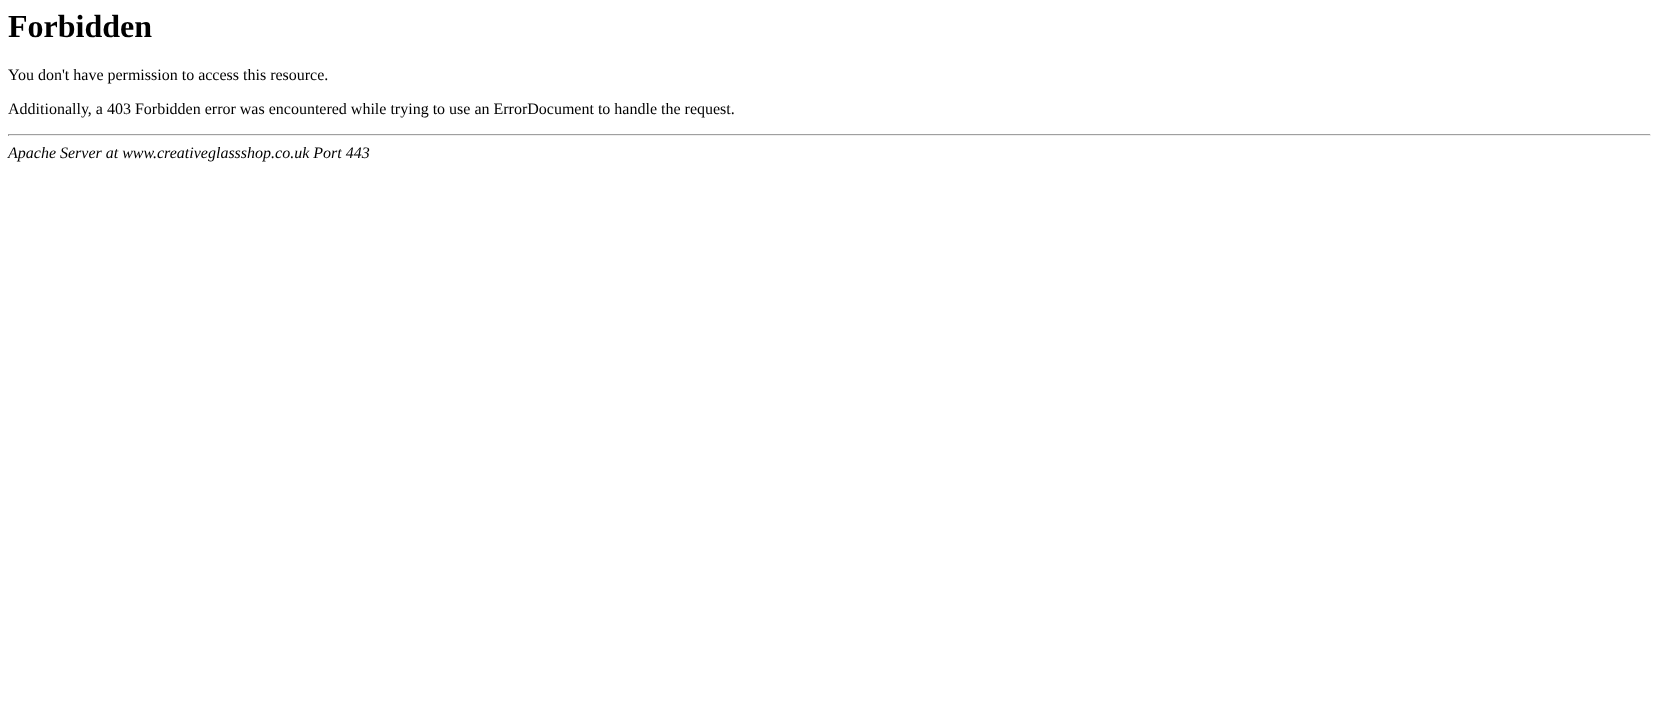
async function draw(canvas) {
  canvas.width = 1659;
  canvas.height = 720;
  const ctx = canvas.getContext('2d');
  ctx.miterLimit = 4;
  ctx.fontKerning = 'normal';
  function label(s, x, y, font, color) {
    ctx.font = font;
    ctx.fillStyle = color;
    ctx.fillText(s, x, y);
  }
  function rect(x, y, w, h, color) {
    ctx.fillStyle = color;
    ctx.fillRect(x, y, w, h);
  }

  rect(0, 0, 1659, 720, '#fff');
  label('Forbidden', 8, 37, 'bold 32px Liberation Serif', '#000');
  label('You don\'t have permission to access this resource.', 8, 80, '16px Liberation Serif', '#000');
  label('Additionally, a 403 Forbidden error was encountered while trying to use an ErrorDocument to handle the request.', 8, 114, '16px Liberation Serif', '#000');
  rect(8, 134, 1643, 1, '#9f9f9f');
  rect(1650, 134, 1, 2, '#eee');
  rect(8, 135, 1643, 1, '#eee');
  rect(8, 134, 1, 2, '#9f9f9f');
  label('Apache Server at www.creativeglassshop.co.uk Port 443', 8, 158, 'italic 16px Liberation Serif', '#000');
}

draw(document.querySelector('canvas'));
